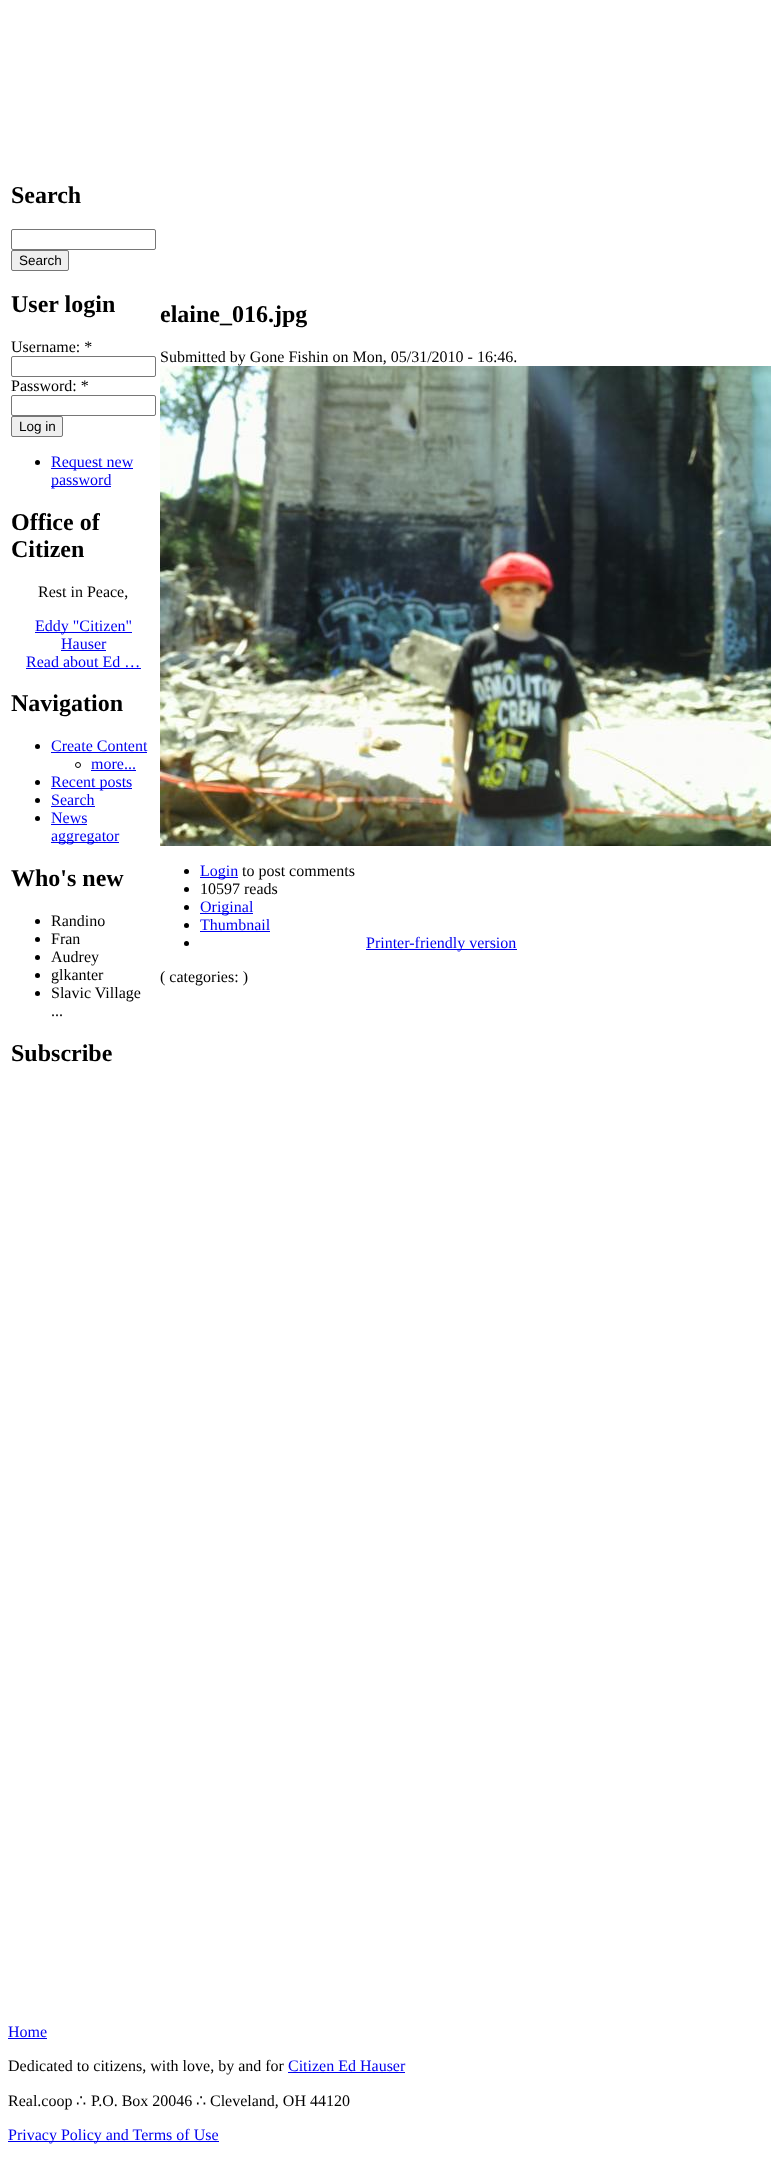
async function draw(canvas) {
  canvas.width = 771;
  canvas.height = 2160;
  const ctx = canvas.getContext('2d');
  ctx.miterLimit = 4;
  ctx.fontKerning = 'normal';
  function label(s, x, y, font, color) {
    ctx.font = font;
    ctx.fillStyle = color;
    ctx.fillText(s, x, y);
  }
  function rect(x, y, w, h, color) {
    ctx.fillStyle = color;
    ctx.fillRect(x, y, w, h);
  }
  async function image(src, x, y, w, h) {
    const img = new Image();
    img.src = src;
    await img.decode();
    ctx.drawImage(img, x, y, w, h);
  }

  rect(0, 0, 771, 2160, '#fff');
  label('Search', 11, 203, 'bold 24px Liberation Serif', '#000');
  ctx.beginPath();
  ctx.roundRect(11.5, 229.5, 144, 20, 1.5);
  ctx.strokeStyle = '#767676';
  ctx.stroke();
  ctx.fillStyle = '#efefef';
  ctx.beginPath();
  ctx.roundRect(11.5, 250.5, 57, 20, 1.5);
  ctx.fill();
  ctx.stroke();
  label('Search', 19, 265, '13.5px Liberation Sans', '#000');
  label('User login', 11, 312, 'bold 24px Liberation Serif', '#000');
  label('Username: *', 11, 352, '16px Liberation Serif', '#000');
  ctx.beginPath();
  ctx.roundRect(11.5, 356.5, 144, 20, 1.5);
  ctx.stroke();
  label('Password: *', 11, 391, '16px Liberation Serif', '#000');
  ctx.beginPath();
  ctx.roundRect(11.5, 395.5, 144, 20, 1.5);
  ctx.stroke();
  ctx.fillStyle = '#efefef';
  ctx.beginPath();
  ctx.roundRect(11.5, 416.5, 51, 20, 1.5);
  ctx.fill();
  ctx.stroke();
  label('Log in', 19, 431, '13.5px Liberation Sans', '#000');
  ctx.beginPath();
  ctx.arc(37.5, 462.5, 2.5, 0, 2 * Math.PI);
  ctx.fill();
  rect(51, 468, 82, 1, '#00e');
  label('Request new', 51, 467, '16px Liberation Serif', '#00e');
  rect(51, 486, 60, 1, '#00e');
  label('password', 51, 485, '16px Liberation Serif', '#00e');
  label('Office of', 11, 530, 'bold 24px Liberation Serif', '#000');
  label('Citizen', 11, 557, 'bold 24px Liberation Serif', '#000');
  label('Rest in Peace,', 38, 597, '16px Liberation Serif', '#000');
  rect(35, 632, 97, 1, '#00e');
  label('Eddy "Citizen"', 35, 631, '16px Liberation Serif', '#00e');
  label('Hauser', 61, 649, '16px Liberation Serif', '#00e');
  rect(61, 650, 45, 1, '#00e');
  label('Read about Ed …', 26, 667, '16px Liberation Serif', '#00e');
  rect(26, 668, 115, 1, '#00e');
  label('Navigation', 11, 711, 'bold 24px Liberation Serif', '#000');
  ctx.beginPath();
  ctx.arc(37.5, 746.5, 2.5, 0, 2 * Math.PI);
  ctx.fill();
  label('Create Content', 51, 751, '16px Liberation Serif', '#00e');
  rect(51, 752, 96, 1, '#00e');
  ctx.beginPath();
  ctx.arc(78, 765, 2.5, 0, 2 * Math.PI);
  ctx.strokeStyle = '#000';
  ctx.stroke();
  label('more...', 91, 769, '16px Liberation Serif', '#00e');
  rect(91, 770, 45, 1, '#00e');
  ctx.fillStyle = '#000';
  ctx.beginPath();
  ctx.arc(37.5, 782.5, 2.5, 0, 2 * Math.PI);
  ctx.fill();
  rect(51, 788, 81, 1, '#00e');
  label('Recent posts', 51, 787, '16px Liberation Serif', '#00e');
  ctx.fillStyle = '#000';
  ctx.beginPath();
  ctx.arc(37.5, 800.5, 2.5, 0, 2 * Math.PI);
  ctx.fill();
  label('Search', 51, 805, '16px Liberation Serif', '#00e');
  rect(51, 806, 44, 1, '#00e');
  ctx.fillStyle = '#000';
  ctx.beginPath();
  ctx.arc(37.5, 818.5, 2.5, 0, 2 * Math.PI);
  ctx.fill();
  label('News', 51, 823, '16px Liberation Serif', '#00e');
  rect(51, 824, 36, 1, '#00e');
  rect(51, 842, 68, 1, '#00e');
  label('aggregator', 51, 841, '16px Liberation Serif', '#00e');
  label('Who\'s new', 11, 886, 'bold 24px Liberation Serif', '#000');
  ctx.beginPath();
  ctx.arc(37.5, 921.5, 2.5, 0, 2 * Math.PI);
  ctx.fill();
  label('Randino', 51, 926, '16px Liberation Serif', '#000');
  ctx.beginPath();
  ctx.arc(37.5, 939.5, 2.5, 0, 2 * Math.PI);
  ctx.fill();
  label('Fran', 51, 944, '16px Liberation Serif', '#000');
  ctx.beginPath();
  ctx.arc(37.5, 957.5, 2.5, 0, 2 * Math.PI);
  ctx.fill();
  label('Audrey', 51, 962, '16px Liberation Serif', '#000');
  ctx.beginPath();
  ctx.arc(37.5, 975.5, 2.5, 0, 2 * Math.PI);
  ctx.fill();
  label('glkanter', 51, 980, '16px Liberation Serif', '#000');
  ctx.beginPath();
  ctx.arc(37.5, 993.5, 2.5, 0, 2 * Math.PI);
  ctx.fill();
  label('Slavic Village', 51, 998, '16px Liberation Serif', '#000');
  label('...', 51, 1016, '16px Liberation Serif', '#000');
  label('Subscribe', 11, 1061, 'bold 24px Liberation Serif', '#000');
  label('elaine_016.jpg', 160, 322, 'bold 24px Liberation Serif', '#000');
  label('Submitted by Gone Fishin on Mon, 05/31/2010 - 16:46.', 160, 362, '16px Liberation Serif', '#000');
  await image('assets/img1.png', 160, 366, 611, 480);
  ctx.beginPath();
  ctx.arc(186.5, 871.5, 2.5, 0, 2 * Math.PI);
  ctx.fill();
  rect(200, 877, 38, 1, '#00e');
  label('Login', 200, 876, '16px Liberation Serif', '#00e');
  label('to post comments', 242, 876, '16px Liberation Serif', '#000');
  ctx.beginPath();
  ctx.arc(186.5, 889.5, 2.5, 0, 2 * Math.PI);
  ctx.fill();
  label('10597 reads', 200, 894, '16px Liberation Serif', '#000');
  ctx.beginPath();
  ctx.arc(186.5, 907.5, 2.5, 0, 2 * Math.PI);
  ctx.fill();
  rect(200, 913, 53, 1, '#00e');
  label('Original', 200, 912, '16px Liberation Serif', '#00e');
  ctx.fillStyle = '#000';
  ctx.beginPath();
  ctx.arc(186.5, 925.5, 2.5, 0, 2 * Math.PI);
  ctx.fill();
  label('Thumbnail', 200, 930, '16px Liberation Serif', '#00e');
  rect(200, 931, 70, 1, '#00e');
  ctx.fillStyle = '#000';
  ctx.beginPath();
  ctx.arc(186.5, 943.5, 2.5, 0, 2 * Math.PI);
  ctx.fill();
  rect(366, 949, 151, 1, '#00e');
  label('Printer-friendly version', 366, 948, '16px Liberation Serif', '#00e');
  label('( categories: )', 160, 982, '16px Liberation Serif', '#000');
  label('Home', 8, 2037, '16px Liberation Serif', '#00e');
  rect(8, 2038, 39, 1, '#00e');
  label('Dedicated to citizens, with love, by and for', 8, 2071, '16px Liberation Serif', '#000');
  label('Citizen Ed Hauser', 288, 2071, '16px Liberation Serif', '#00e');
  rect(288, 2072, 117, 1, '#00e');
  label('Real.coop', 8, 2106, '16px Liberation Serif', '#000');
  label('∴', 76, 2106, '16px DejaVu Sans', '#000');
  label('P.O. Box 20046', 91, 2106, '16px Liberation Serif', '#000');
  label('∴', 196, 2106, '16px DejaVu Sans', '#000');
  label('Cleveland, OH 44120', 210, 2106, '16px Liberation Serif', '#000');
  rect(8, 2141, 211, 1, '#00e');
  label('Privacy Policy and Terms of Use', 8, 2140, '16px Liberation Serif', '#00e');
}

draw(document.querySelector('canvas'));
